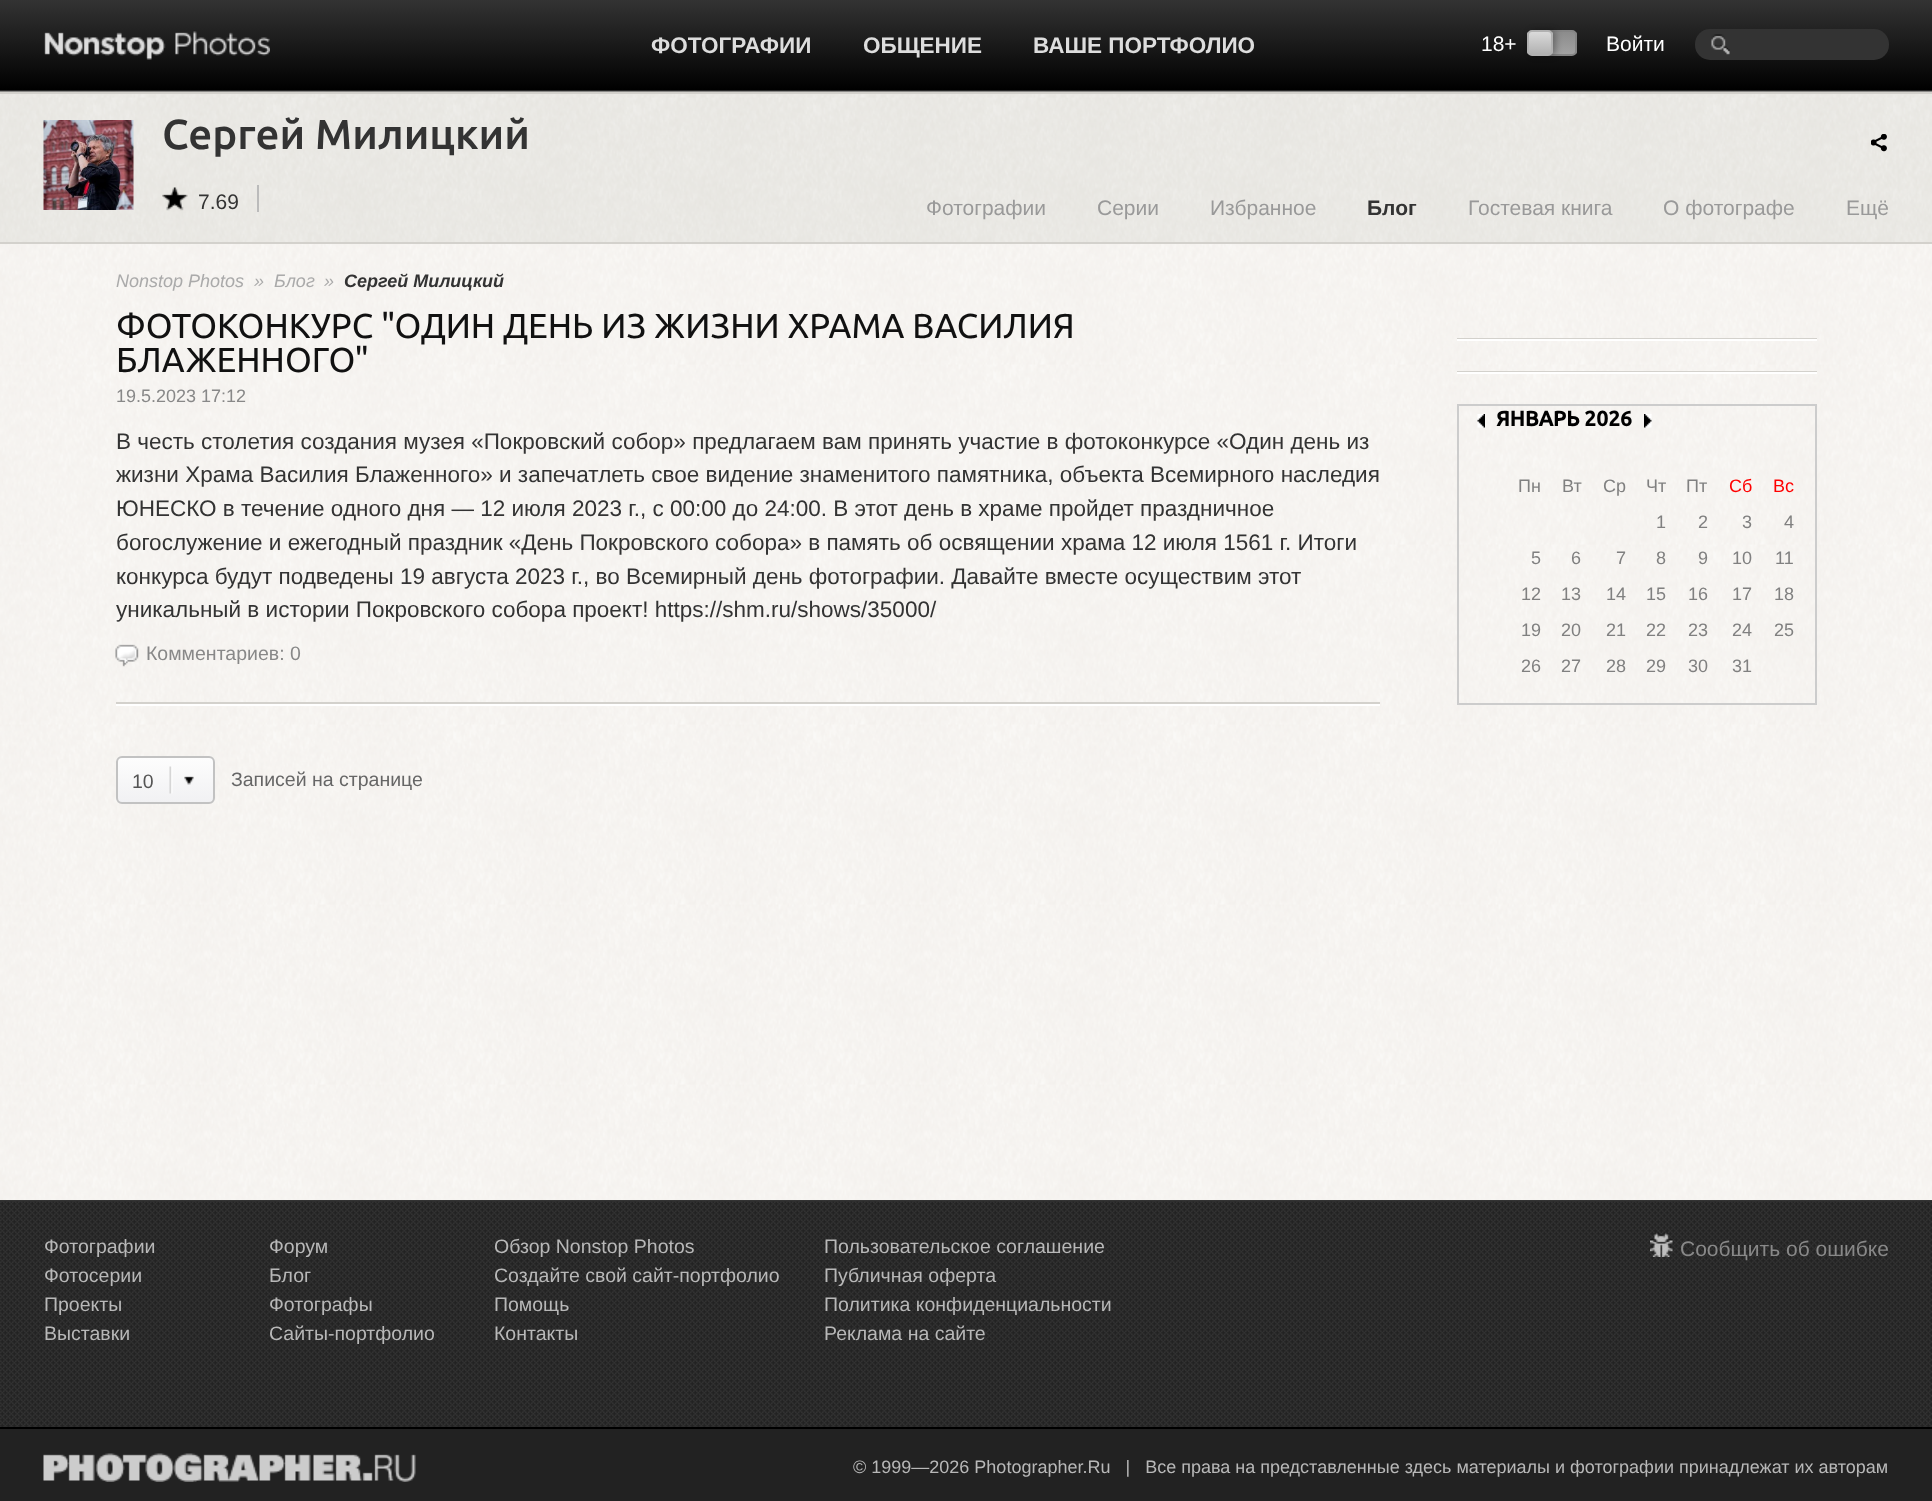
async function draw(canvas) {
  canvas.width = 1932;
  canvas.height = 1501;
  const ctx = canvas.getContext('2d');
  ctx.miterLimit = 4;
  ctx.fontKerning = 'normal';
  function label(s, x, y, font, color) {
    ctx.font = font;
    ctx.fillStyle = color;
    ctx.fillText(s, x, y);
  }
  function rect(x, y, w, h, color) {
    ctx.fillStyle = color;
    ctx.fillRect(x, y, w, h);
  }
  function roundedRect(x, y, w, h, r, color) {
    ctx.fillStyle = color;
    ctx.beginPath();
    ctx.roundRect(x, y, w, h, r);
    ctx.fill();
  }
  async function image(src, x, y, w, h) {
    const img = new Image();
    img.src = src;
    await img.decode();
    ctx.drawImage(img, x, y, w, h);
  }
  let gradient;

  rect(0, 0, 1932, 1501, '#fff');
  await image('assets/img1.png', 0, 244, 1932, 956);
  gradient = ctx.createLinearGradient(966, 0, 966, 90);
  gradient.addColorStop(0, '#333');
  gradient.addColorStop(1, '#000');
  ctx.fillStyle = gradient;
  ctx.fillRect(0, 0, 1932, 90);
  await image('assets/img2.png', 44, 31, 226, 29);
  label('ФОТОГРАФИИ', 651, 53, 'bold 22.5px Liberation Sans', '#ddd');
  label('ОБЩЕНИЕ', 863, 53, 'bold 22.5px Liberation Sans', '#ddd');
  label('ВАШЕ ПОРТФОЛИО', 1033, 53, 'bold 22.5px Liberation Sans', '#ddd');
  label('18+', 1481, 51, '21px Liberation Sans', '#fff');
  ctx.save();
  ctx.beginPath();
  ctx.roundRect(1529, 30, 48, 26, 5);
  ctx.clip();
  gradient = ctx.createLinearGradient(1553, 54, 1553, 32);
  gradient.addColorStop(0, '#a2a2a2');
  gradient.addColorStop(1, '#8c8c8c');
  ctx.fillStyle = gradient;
  ctx.fillRect(1552, 32, 25, 22);
  ctx.restore();
  ctx.beginPath();
  ctx.roundRect(1530, 31, 46, 24, 4);
  ctx.strokeStyle = '#858585';
  ctx.lineWidth = 2;
  ctx.stroke();
  ctx.fillStyle = '#0000004d';
  ctx.filter = 'blur(3px)';
  ctx.beginPath();
  ctx.roundRect(1530, 30, 26, 26, 5);
  ctx.fill();
  ctx.filter = 'none';
  ctx.save();
  ctx.beginPath();
  ctx.roundRect(1527, 30, 26, 26, 5);
  ctx.clip();
  gradient = ctx.createLinearGradient(1540, 54, 1540, 32);
  gradient.addColorStop(0, '#b1b1b1');
  gradient.addColorStop(1, '#dadada');
  ctx.fillStyle = gradient;
  ctx.fillRect(1527, 32, 26, 22);
  ctx.restore();
  ctx.beginPath();
  ctx.roundRect(1528, 31, 24, 24, 4);
  ctx.strokeStyle = '#b1b1b1';
  ctx.stroke();
  label('Войти', 1606, 51, '21px Liberation Sans', '#fff');
  roundedRect(1695, 29, 194, 31, 15, '#333');
  await image('assets/img3.png', 1711, 34, 19, 21);
  rect(0, 90, 1932, 2, '#282828');
  await image('assets/img4.png', 0, 91, 1932, 151);
  rect(0, 92, 1932, 2, '#d3d1cc');
  rect(0, 242, 1932, 2, '#d3d1cc');
  await image('assets/img5.png', 43, 120, 91, 90);
  label('Сергей Милицкий', 162, 149, '500 42px Ubuntu', '#333');
  await image('assets/img6.png', 162, 187, 26, 24);
  rect(257, 185, 2, 27, '#bbb');
  label('7.69', 198, 209, '21px Liberation Sans', '#333');
  await image('assets/img7.png', 1871, 134, 16, 18);
  label('Фотографии', 926, 215, '21px Liberation Sans', '#999');
  label('Серии', 1097, 215, '21px Liberation Sans', '#999');
  label('Избранное', 1210, 215, '21px Liberation Sans', '#999');
  label('Блог', 1367, 215, 'bold 21px Liberation Sans', '#333');
  label('Гостевая книга', 1468, 215, '21px Liberation Sans', '#999');
  label('О фотографе', 1663, 215, '21px Liberation Sans', '#999');
  label('Ещё', 1846, 215, '21px Liberation Sans', '#999');
  label('Nonstop Photos', 116, 287, 'italic 18px Liberation Sans', '#aaa');
  label('»', 254, 287, 'italic 18px Liberation Sans', '#aaa');
  label('Блог', 274, 287, 'italic 18px Liberation Sans', '#aaa');
  label('»', 324, 287, 'italic 18px Liberation Sans', '#aaa');
  label('Сергей Милицкий', 344, 287, 'italic bold 18px Liberation Sans', '#333');
  label('ФОТОКОНКУРС "ОДИН ДЕНЬ ИЗ ЖИЗНИ ХРАМА ВАСИЛИЯ', 116, 338, '34.5px Ubuntu', '#111');
  label('БЛАЖЕННОГО"', 116, 372, '34.5px Ubuntu', '#111');
  label('19.5.2023 17:12', 116, 402, '18px Liberation Sans', '#888');
  label('В честь столетия создания музея «Покровский собор» предлагаем вам принять участие в фотоконкурсе «Один день из', 116, 449, '22.5px Liberation Sans', '#333');
  label('жизни Храма Василия Блаженного» и запечатлеть свое видение знаменитого памятника, объекта Всемирного наследия', 116, 482, '22.5px Liberation Sans', '#333');
  label('ЮНЕСКО в течение одного дня — 12 июля 2023 г., с 00:00 до 24:00. В этот день в храме пройдет праздничное', 116, 516, '22.5px Liberation Sans', '#333');
  label('богослужение и ежегодный праздник «День Покровского собора» в память об освящении храма 12 июля 1561 г. Итоги', 116, 550, '22.5px Liberation Sans', '#333');
  label('конкурса будут подведены 19 августа 2023 г., во Всемирный день фотографии. Давайте вместе осуществим этот', 116, 584, '22.5px Liberation Sans', '#333');
  label('уникальный в истории Покровского собора проект! https://shm.ru/shows/35000/', 116, 617, '22.5px Liberation Sans', '#333');
  await image('assets/img8.png', 115, 644, 24, 23);
  label('Комментариев: 0', 146, 660, '19.5px Liberation Sans', '#888');
  rect(116, 702, 1264, 2, '#d3d1cc');
  rect(116, 704, 1264, 2, '#fff');
  ctx.save();
  ctx.beginPath();
  ctx.roundRect(116, 756, 99, 48, 6);
  ctx.clip();
  gradient = ctx.createLinearGradient(165, 758, 165, 803);
  gradient.addColorStop(0, '#fdfdfd');
  gradient.addColorStop(1, '#f1f1f3');
  ctx.fillStyle = gradient;
  ctx.fillRect(116, 758, 99, 45);
  ctx.restore();
  ctx.beginPath();
  ctx.roundRect(117, 757, 97, 46, 5);
  ctx.strokeStyle = '#c2c2c2';
  ctx.stroke();
  await image('assets/img9.png', 169, 766, 25, 28);
  label('10', 132, 788, '19.5px Liberation Sans', '#545454');
  label('Записей на странице', 231, 786, '19.5px Liberation Sans', '#666');
  rect(1457, 338, 360, 1, '#d3d1cc');
  rect(1457, 339, 360, 2, '#fff');
  rect(1457, 371, 360, 1, '#d3d1cc');
  rect(1457, 372, 360, 2, '#fff');
  ctx.strokeStyle = '#ccc';
  ctx.strokeRect(1458, 405, 358, 299);
  await image('assets/img10.png', 1477, 414, 8, 14);
  label('ЯНВАРЬ 2026', 1496, 426, 'bold 21px Ubuntu', '#000');
  await image('assets/img11.png', 1644, 414, 8, 14);
  label('Пн', 1518, 492, '18px Liberation Sans', '#808080');
  label('Вт', 1562, 492, '18px Liberation Sans', '#808080');
  label('Ср', 1603, 492, '18px Liberation Sans', '#808080');
  label('Чт', 1646, 492, '18px Liberation Sans', '#808080');
  label('Пт', 1686, 492, '18px Liberation Sans', '#808080');
  label('Сб', 1729, 492, '18px Liberation Sans', '#f00');
  label('Вс', 1773, 492, '18px Liberation Sans', '#f00');
  label('1', 1656, 528, '18px Liberation Sans', '#808080');
  label('2', 1698, 528, '18px Liberation Sans', '#808080');
  label('3', 1742, 528, '18px Liberation Sans', '#808080');
  label('4', 1784, 528, '18px Liberation Sans', '#808080');
  label('5', 1531, 564, '18px Liberation Sans', '#808080');
  label('6', 1571, 564, '18px Liberation Sans', '#808080');
  label('7', 1616, 564, '18px Liberation Sans', '#808080');
  label('8', 1656, 564, '18px Liberation Sans', '#808080');
  label('9', 1698, 564, '18px Liberation Sans', '#808080');
  label('10', 1732, 564, '18px Liberation Sans', '#808080');
  label('11', 1775, 564, '18px Liberation Sans', '#808080');
  label('12', 1521, 600, '18px Liberation Sans', '#808080');
  label('13', 1561, 600, '18px Liberation Sans', '#808080');
  label('14', 1606, 600, '18px Liberation Sans', '#808080');
  label('15', 1646, 600, '18px Liberation Sans', '#808080');
  label('16', 1688, 600, '18px Liberation Sans', '#808080');
  label('17', 1732, 600, '18px Liberation Sans', '#808080');
  label('18', 1774, 600, '18px Liberation Sans', '#808080');
  label('19', 1521, 636, '18px Liberation Sans', '#808080');
  label('20', 1561, 636, '18px Liberation Sans', '#808080');
  label('21', 1606, 636, '18px Liberation Sans', '#808080');
  label('22', 1646, 636, '18px Liberation Sans', '#808080');
  label('23', 1688, 636, '18px Liberation Sans', '#808080');
  label('24', 1732, 636, '18px Liberation Sans', '#808080');
  label('25', 1774, 636, '18px Liberation Sans', '#808080');
  label('26', 1521, 672, '18px Liberation Sans', '#808080');
  label('27', 1561, 672, '18px Liberation Sans', '#808080');
  label('28', 1606, 672, '18px Liberation Sans', '#808080');
  label('29', 1646, 672, '18px Liberation Sans', '#808080');
  label('30', 1688, 672, '18px Liberation Sans', '#808080');
  label('31', 1732, 672, '18px Liberation Sans', '#808080');
  rect(0, 1429, 1932, 72, '#222');
  rect(0, 1200, 1932, 2, '#333');
  await image('assets/img12.png', 0, 1201, 1932, 226);
  rect(0, 1427, 1932, 2, '#000');
  label('Фотографии', 44, 1253, '19.5px Liberation Sans', '#b8b8b8');
  label('Фотосерии', 44, 1282, '19.5px Liberation Sans', '#b8b8b8');
  label('Проекты', 44, 1311, '19.5px Liberation Sans', '#b8b8b8');
  label('Выставки', 44, 1340, '19.5px Liberation Sans', '#b8b8b8');
  label('Форум', 269, 1253, '19.5px Liberation Sans', '#b8b8b8');
  label('Блог', 269, 1282, '19.5px Liberation Sans', '#b8b8b8');
  label('Фотографы', 269, 1311, '19.5px Liberation Sans', '#b8b8b8');
  label('Сайты-портфолио', 269, 1340, '19.5px Liberation Sans', '#b8b8b8');
  label('Обзор Nonstop Photos', 494, 1253, '19.5px Liberation Sans', '#b8b8b8');
  label('Создайте свой сайт-портфолио', 494, 1282, '19.5px Liberation Sans', '#b8b8b8');
  label('Помощь', 494, 1311, '19.5px Liberation Sans', '#b8b8b8');
  label('Контакты', 494, 1340, '19.5px Liberation Sans', '#b8b8b8');
  label('Пользовательское соглашение', 824, 1253, '19.5px Liberation Sans', '#b8b8b8');
  label('Публичная оферта', 824, 1282, '19.5px Liberation Sans', '#b8b8b8');
  label('Политика конфиденциальности', 824, 1311, '19.5px Liberation Sans', '#b8b8b8');
  label('Реклама на сайте', 824, 1340, '19.5px Liberation Sans', '#b8b8b8');
  await image('assets/img13.png', 1650, 1231, 23, 26);
  label('Сообщить об ошибке', 1680, 1256, '21px Liberation Sans', '#888');
  await image('assets/img14.png', 43, 1453, 373, 29);
  label('© 1999—2026 Photographer.Ru   |   Все права на представленные здесь материалы и фотографии принадлежат их авторам', 853, 1473, '18px Liberation Sans', '#b8b8b8');
}

draw(document.querySelector('canvas'));
